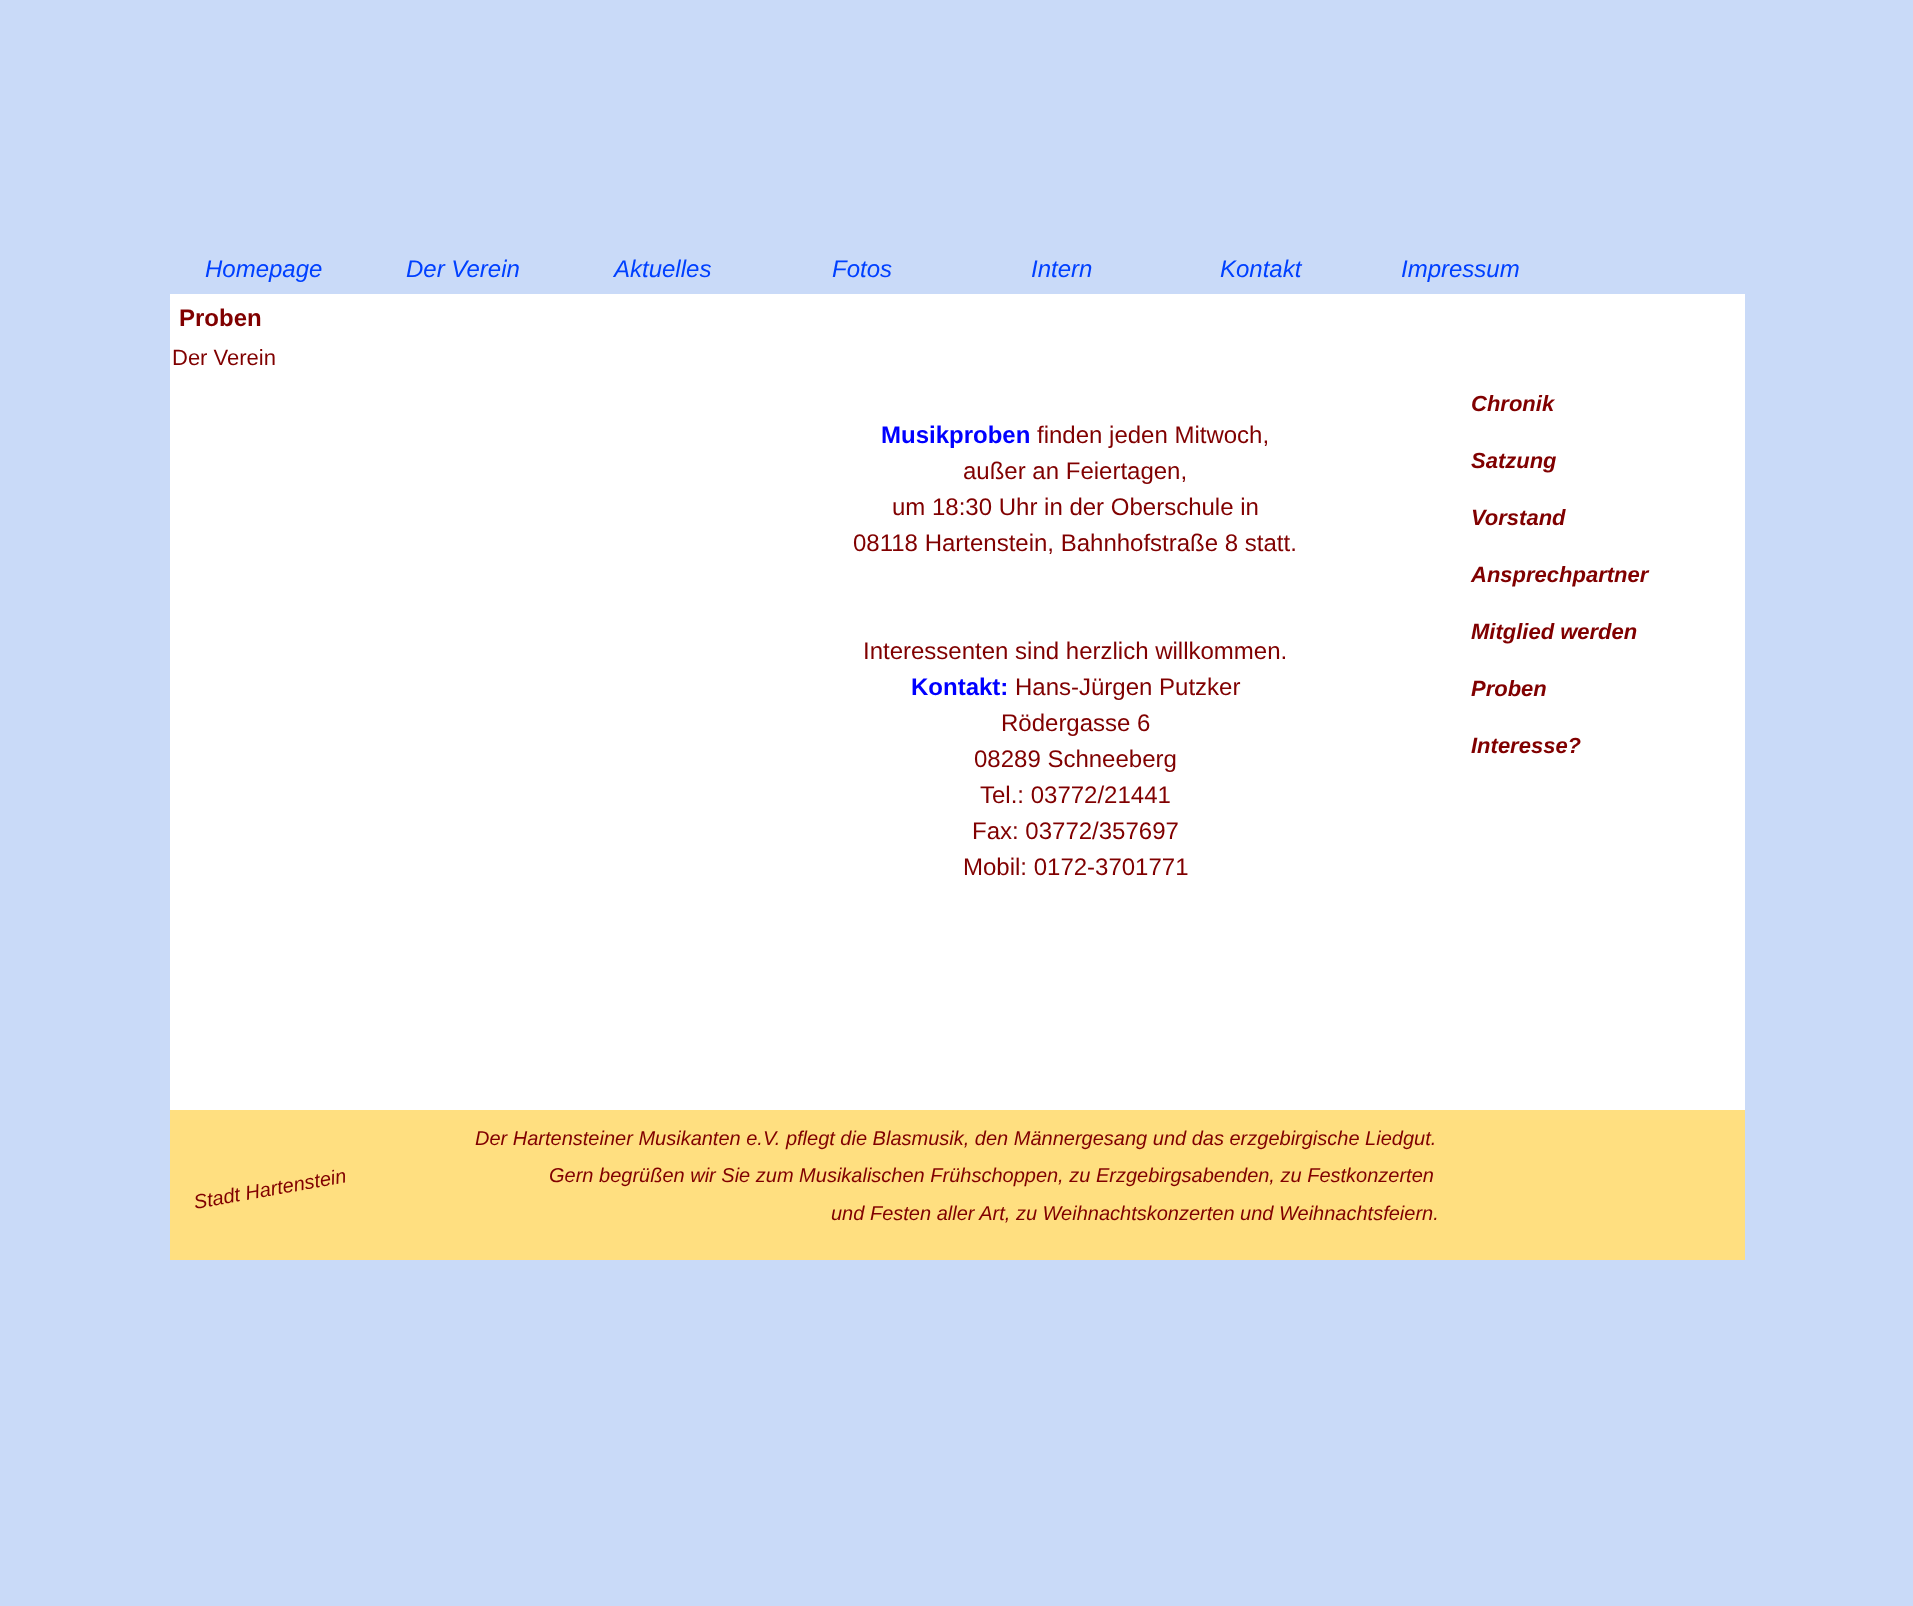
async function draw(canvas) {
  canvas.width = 1913;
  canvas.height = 1606;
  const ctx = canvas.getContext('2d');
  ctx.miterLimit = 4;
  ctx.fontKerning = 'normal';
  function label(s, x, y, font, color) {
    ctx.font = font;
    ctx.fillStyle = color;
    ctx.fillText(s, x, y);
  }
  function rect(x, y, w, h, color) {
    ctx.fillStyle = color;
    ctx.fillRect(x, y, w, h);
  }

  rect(0, 0, 1913, 1606, '#c9daf8');
  label('Homepage', 205, 277, 'italic 24px Liberation Sans', '#0040ff');
  label('Der Verein', 406, 277, 'italic 24px Liberation Sans', '#0040ff');
  label('Aktuelles', 614, 277, 'italic 24px Liberation Sans', '#0040ff');
  label('Fotos', 832, 277, 'italic 24px Liberation Sans', '#0040ff');
  label('Intern', 1031, 277, 'italic 24px Liberation Sans', '#0040ff');
  label('Kontakt', 1220, 277, 'italic 24px Liberation Sans', '#0040ff');
  label('Impressum', 1401, 277, 'italic 24px Liberation Sans', '#0040ff');
  rect(170, 294, 1575, 816, '#fff');
  label('Proben', 179, 326, 'bold 24px Liberation Sans', '#800000');
  label('Der Verein', 172, 365, '22px Liberation Sans', '#800000');
  label('Musikproben', 881, 443, 'bold 24px Liberation Sans', '#00f');
  label('finden jeden Mitwoch,', 1037, 443, '24px Liberation Sans', '#800000');
  label('außer an Feiertagen,', 963, 479, '24px Liberation Sans', '#800000');
  label('um 18:30 Uhr in der Oberschule in', 892, 515, '24px Liberation Sans', '#800000');
  label('08118 Hartenstein, Bahnhofstraße 8 statt.', 853, 551, '24px Liberation Sans', '#800000');
  label('Interessenten sind herzlich willkommen.', 863, 659, '24px Liberation Sans', '#800000');
  label('Kontakt:', 911, 695, 'bold 24px Liberation Sans', '#00f');
  label('Hans-Jürgen Putzker', 1015, 695, '24px Liberation Sans', '#800000');
  label('Rödergasse 6', 1001, 731, '24px Liberation Sans', '#800000');
  label('08289 Schneeberg', 974, 767, '24px Liberation Sans', '#800000');
  label('Tel.: 03772/21441', 980, 803, '24px Liberation Sans', '#800000');
  label('Fax: 03772/357697', 972, 839, '24px Liberation Sans', '#800000');
  label('Mobil: 0172-3701771', 963, 875, '24px Liberation Sans', '#800000');
  label('Chronik', 1471, 411, 'italic bold 22px Liberation Sans', '#800000');
  label('Satzung', 1471, 468, 'italic bold 22px Liberation Sans', '#800000');
  label('Vorstand', 1471, 525, 'italic bold 22px Liberation Sans', '#800000');
  label('Ansprechpartner', 1471, 582, 'italic bold 22px Liberation Sans', '#800000');
  label('Mitglied werden', 1471, 639, 'italic bold 22px Liberation Sans', '#800000');
  label('Proben', 1471, 696, 'italic bold 22px Liberation Sans', '#800000');
  label('Interesse?', 1471, 753, 'italic bold 22px Liberation Sans', '#800000');
  rect(170, 1110, 1575, 150, '#ffdf80');
  label('Der Hartensteiner Musikanten e.V. pflegt die Blasmusik, den Männergesang und das erzgebirgische Liedgut.', 475, 1145, 'italic 20px Liberation Sans', '#800000');
  ctx.save();
  ctx.translate(195, 1209);
  ctx.rotate(-10 * Math.PI / 180);
  ctx.fillText('Stadt Hartenstein', 0, 0);
  ctx.restore();
  label('Gern begrüßen wir Sie zum Musikalischen Frühschoppen, zu Erzgebirgsabenden, zu Festkonzerten', 549, 1182, 'italic 20px Liberation Sans', '#800000');
  label('und Festen aller Art, zu Weihnachtskonzerten und Weihnachtsfeiern.', 831, 1220, 'italic 20px Liberation Sans', '#800000');
}

draw(document.querySelector('canvas'));
